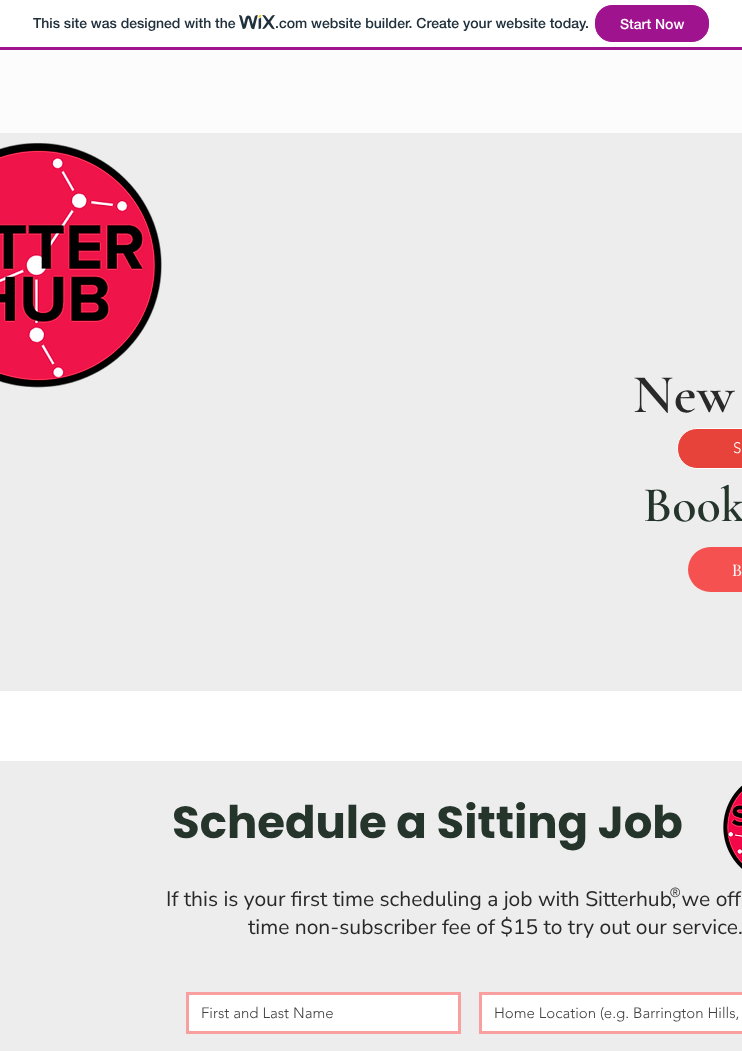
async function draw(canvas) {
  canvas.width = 742;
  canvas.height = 1051;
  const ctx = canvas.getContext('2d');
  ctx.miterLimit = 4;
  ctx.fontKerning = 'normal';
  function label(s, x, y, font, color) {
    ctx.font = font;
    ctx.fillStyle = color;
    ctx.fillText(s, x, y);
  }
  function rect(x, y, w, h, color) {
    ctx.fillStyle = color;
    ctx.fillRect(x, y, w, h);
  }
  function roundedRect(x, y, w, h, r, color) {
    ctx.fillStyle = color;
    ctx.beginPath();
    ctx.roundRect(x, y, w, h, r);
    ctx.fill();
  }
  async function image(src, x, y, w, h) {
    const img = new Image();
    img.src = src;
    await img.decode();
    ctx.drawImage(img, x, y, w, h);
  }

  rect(0, 0, 742, 1051, '#fff');
  rect(0, 47, 742, 3, '#a0138e');
  label('This site was designed with the', 33, 28, '500 14px "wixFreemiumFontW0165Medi"', '#20303c');
  await image('assets/img1.png', 239, 15, 36, 15);
  label('.com website builder. Create your website today.', 275, 28, '500 14px "wixFreemiumFontW0165Medi"', '#20303c');
  ctx.fillStyle = '#a0138e';
  ctx.beginPath();
  ctx.roundRect(595.5, 5.5, 113, 36, 16.5);
  ctx.fill();
  ctx.strokeStyle = '#a0138e';
  ctx.stroke();
  label('Start Now', 620, 29, '500 14px "wixFreemiumFontW0165Medi"', '#fff');
  rect(0, 50, 742, 83, '#fcfcfc');
  rect(0, 133, 742, 558, '#ededed');
  await image('assets/img2.png', 0, 143, 162, 245);
  ctx.letterSpacing = '0.5px';
  label('New', 633, 412, '600 55px Cormorant Garamond', '#292929');
  ctx.fillStyle = '#e7433a';
  ctx.beginPath();
  ctx.roundRect(677.5, 428.5, 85, 40, 19.5);
  ctx.fill();
  ctx.strokeStyle = '#fff';
  ctx.stroke();
  ctx.letterSpacing = '0px';
  label('S', 733, 453, '300 15px "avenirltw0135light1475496"', '#fff');
  label('Book', 643, 521, '600 50px Cormorant Garamond', '#25352c');
  roundedRect(688, 547, 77, 45, 22.5, '#f55151');
  ctx.letterSpacing = '1px';
  label('B', 732, 576, '16px Playfair Display', '#fff');
  rect(0, 761, 742, 290, '#ededed');
  ctx.letterSpacing = '0px';
  label('Schedule a Sitting Job', 172, 838, 'bold 45px Poppins', '#25352c');
  await image('assets/img3.png', 723, 785, 19, 84);
  label('If this is your first time scheduling a job with Sitterhub, we off', 166, 906, '21px Nunito Sans', '#292929');
  label('®', 670, 897, '300 13px "avenirltw0135light1475496"', '#292929');
  label('time non-subscriber fee of $15 to try out our service.', 248, 934, '21px Nunito Sans', '#292929');
  ctx.fillStyle = '#fff';
  ctx.beginPath();
  ctx.rect(187.5, 993.5, 272, 39);
  ctx.fill();
  ctx.strokeStyle = '#fa9f9f';
  ctx.lineWidth = 3;
  ctx.stroke();
  label('First and Last Name', 201, 1018, '300 15px "avenirltw0135light1475496"', '#424242');
  ctx.fillStyle = '#fff';
  ctx.beginPath();
  ctx.rect(480.5, 993.5, 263, 39);
  ctx.fill();
  ctx.stroke();
  label('Home Location (e.g. Barrington Hills,', 494, 1018, '300 15px "avenirltw0135light1475496"', '#424242');
}

draw(document.querySelector('canvas'));
